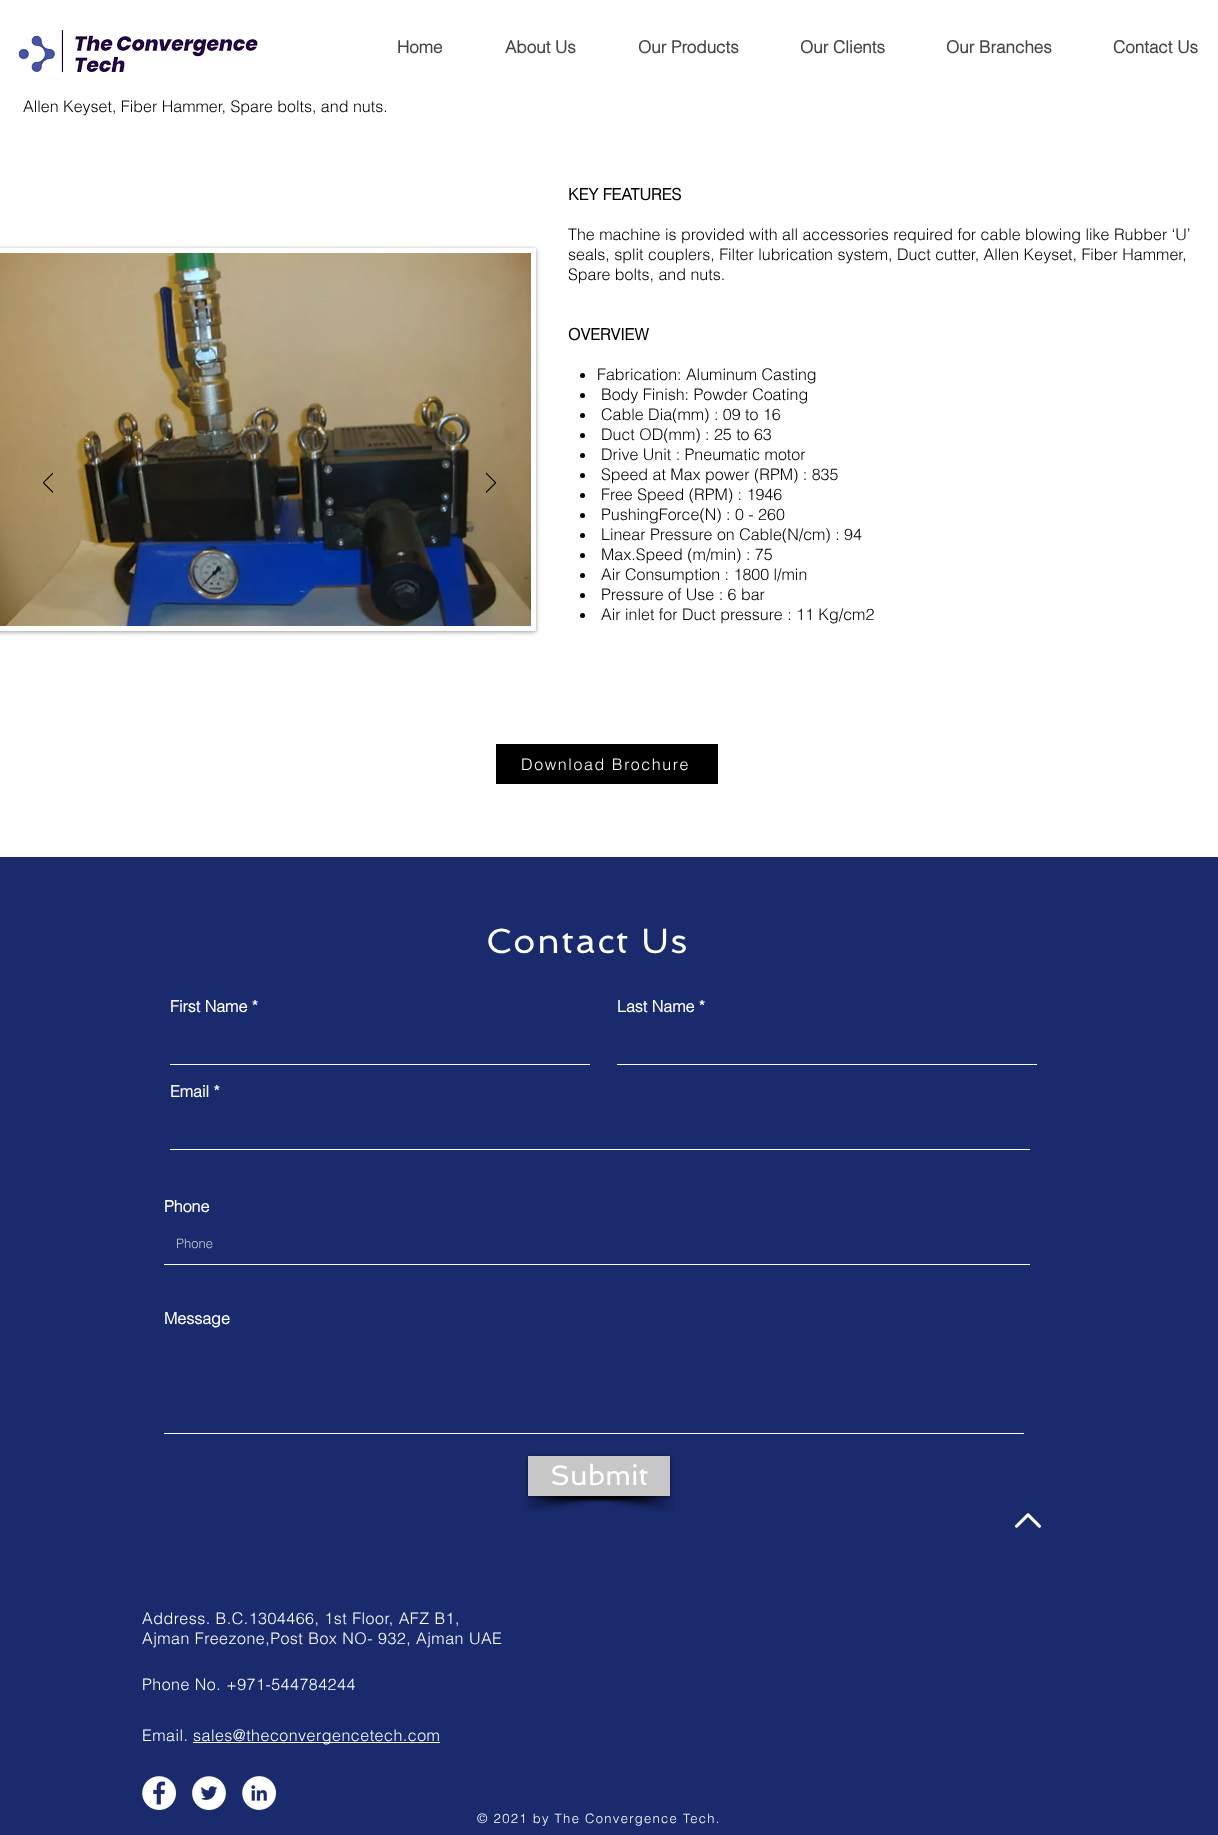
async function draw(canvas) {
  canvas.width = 1218;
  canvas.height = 1835;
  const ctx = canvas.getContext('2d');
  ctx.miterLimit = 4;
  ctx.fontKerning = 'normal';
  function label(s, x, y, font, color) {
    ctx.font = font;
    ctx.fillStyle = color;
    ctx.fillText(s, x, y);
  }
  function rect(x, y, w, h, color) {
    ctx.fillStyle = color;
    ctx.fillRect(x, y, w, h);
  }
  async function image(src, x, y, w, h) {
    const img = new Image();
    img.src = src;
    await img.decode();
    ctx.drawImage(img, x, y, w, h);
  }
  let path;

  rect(0, 0, 1218, 1835, '#fff');
  await image('assets/img1.png', 16, 18, 244, 72);
  label('Home', 397, 53, 'bold 17px helvetica', '#444');
  label('About Us', 505, 53, 'bold 17px helvetica', '#444');
  label('Our Products', 638, 53, 'bold 17px helvetica', '#444');
  label('Our Clients', 800, 53, 'bold 17px helvetica', '#444');
  label('Our Branches', 946, 53, 'bold 17px helvetica', '#444');
  label('Contact Us', 1113, 53, 'bold 17px helvetica', '#444');
  label('Allen Keyset, Fiber Hammer, Spare bolts, and nuts.', 23, 112, '300 16px helvetica', '#000');
  ctx.save();
  path = new Path2D('M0 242H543V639H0ZM-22 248H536V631H-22Z');
  ctx.clip(path, 'evenodd');
  ctx.fillStyle = '#00000066';
  ctx.filter = 'blur(2px)';
  ctx.beginPath();
  ctx.rect(-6, 249, 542, 383);
  ctx.fill();
  ctx.filter = 'none';
  ctx.restore();
  await image('assets/img2.png', 0, 253, 531, 373);
  await image('assets/img3.png', 43, 472, 10, 21);
  await image('assets/img4.png', 486, 472, 11, 21);
  label('KEY FEATURES', 568, 200, 'bold 16px helvetica', '#000');
  label('The machine is provided with all accessories required for cable blowing like Rubber ‘U’', 568, 240, '300 16px helvetica', '#000');
  label('seals, split couplers, Filter lubrication system, Duct cutter, Allen Keyset, Fiber Hammer,', 568, 260, '300 16px helvetica', '#000');
  label('Spare bolts, and nuts.', 568, 280, '300 16px helvetica', '#000');
  label('OVERVIEW', 568, 340, 'bold 16px helvetica', '#000');
  ctx.beginPath();
  ctx.arc(582.5, 375.5, 2.5, 0, 2 * Math.PI);
  ctx.fill();
  label('Fabrication: Aluminum Casting', 597, 380, '300 16px helvetica', '#000');
  ctx.beginPath();
  ctx.arc(582.5, 395.5, 2.5, 0, 2 * Math.PI);
  ctx.fill();
  label('Body Finish: Powder Coating', 601, 400, '300 16px helvetica', '#000');
  ctx.beginPath();
  ctx.arc(582.5, 415.5, 2.5, 0, 2 * Math.PI);
  ctx.fill();
  label('Cable Dia(mm) : 09 to 16', 601, 420, '300 16px helvetica', '#000');
  ctx.beginPath();
  ctx.arc(582.5, 435.5, 2.5, 0, 2 * Math.PI);
  ctx.fill();
  label('Duct OD(mm) : 25 to 63', 601, 440, '300 16px helvetica', '#000');
  ctx.beginPath();
  ctx.arc(582.5, 455.5, 2.5, 0, 2 * Math.PI);
  ctx.fill();
  label('Drive Unit : Pneumatic motor', 601, 460, '300 16px helvetica', '#000');
  ctx.beginPath();
  ctx.arc(582.5, 475.5, 2.5, 0, 2 * Math.PI);
  ctx.fill();
  label('Speed at Max power (RPM) : 835', 601, 480, '300 16px helvetica', '#000');
  ctx.beginPath();
  ctx.arc(582.5, 495.5, 2.5, 0, 2 * Math.PI);
  ctx.fill();
  label('Free Speed (RPM) : 1946', 601, 500, '300 16px helvetica', '#000');
  ctx.beginPath();
  ctx.arc(582.5, 515.5, 2.5, 0, 2 * Math.PI);
  ctx.fill();
  label('PushingForce(N) : 0 - 260', 601, 520, '300 16px helvetica', '#000');
  ctx.beginPath();
  ctx.arc(582.5, 535.5, 2.5, 0, 2 * Math.PI);
  ctx.fill();
  label('Linear Pressure on Cable(N/cm) : 94', 601, 540, '300 16px helvetica', '#000');
  ctx.beginPath();
  ctx.arc(582.5, 555.5, 2.5, 0, 2 * Math.PI);
  ctx.fill();
  label('Max.Speed (m/min) : 75', 601, 560, '300 16px helvetica', '#000');
  ctx.beginPath();
  ctx.arc(582.5, 575.5, 2.5, 0, 2 * Math.PI);
  ctx.fill();
  label('Air Consumption : 1800 l/min', 601, 580, '300 16px helvetica', '#000');
  ctx.beginPath();
  ctx.arc(582.5, 595.5, 2.5, 0, 2 * Math.PI);
  ctx.fill();
  label('Pressure of Use : 6 bar', 601, 600, '300 16px helvetica', '#000');
  ctx.beginPath();
  ctx.arc(582.5, 615.5, 2.5, 0, 2 * Math.PI);
  ctx.fill();
  label('Air inlet for Duct pressure : 11 Kg/cm2', 601, 620, '300 16px helvetica', '#000');
  rect(496, 744, 222, 40, '#000');
  ctx.letterSpacing = '1.6px';
  label('Download Brochure', 521, 770, '300 16px helvetica', '#fff');
  rect(0, 857, 1218, 978, '#1a2b6d');
  ctx.letterSpacing = '1.75px';
  label('Contact Us', 486, 953, '35px Spinnaker', '#fff');
  ctx.letterSpacing = '0px';
  label('First Name *', 170, 1012, 'bold 16px helvetica', '#fff');
  rect(170, 1064, 420, 1, '#fff');
  label('Last Name *', 617, 1012, 'bold 16px helvetica', '#fff');
  rect(617, 1064, 420, 1, '#fff');
  label('Email *', 170, 1097, 'bold 16px helvetica', '#fff');
  rect(170, 1149, 860, 1, '#fff');
  label('Phone', 164, 1212, 'bold 16px helvetica', '#fff');
  rect(164, 1264, 866, 1, '#fff');
  label('Phone', 176, 1248, '300 13px helvetica', '#c7c7c7');
  label('Message', 164, 1324, 'bold 16px helvetica', '#fff');
  rect(164, 1433, 860, 1, '#fff');
  await image('assets/img5.png', 523, 1496, 140, 16);
  await image('assets/img6.png', 538, 1496, 137, 16);
  ctx.fillStyle = '#00000099';
  ctx.filter = 'blur(2px)';
  ctx.beginPath();
  ctx.rect(528, 1457, 142, 40);
  ctx.fill();
  ctx.filter = 'none';
  rect(528, 1456, 142, 40, '#c7c7c7');
  label('Submit', 550, 1485, '28px Spinnaker', '#fff');
  await image('assets/img7.png', 1015, 1513, 26, 15);
  ctx.letterSpacing = '0.5px';
  label('Address. B.C.1304466, 1st Floor, AFZ B1,', 142, 1624, '300 16px helvetica', '#fff');
  label('Ajman Freezone,Post Box NO- 932, Ajman UAE', 142, 1644, '300 16px helvetica', '#fff');
  label('Phone No. +971-544784244', 142, 1690, '300 16px helvetica', '#fff');
  label('Email.', 142, 1741, '300 16px helvetica', '#fff');
  rect(193, 1742, 247, 1, '#fff');
  label('sales@theconvergencetech.com', 193, 1741, '300 16px helvetica', '#fff');
  await image('assets/img8.png', 142, 1776, 34, 34);
  await image('assets/img9.png', 192, 1776, 34, 34);
  await image('assets/img10.png', 242, 1776, 34, 34);
  ctx.letterSpacing = '1.3px';
  label('© 2021 by The Convergence Tech.', 477, 1823, '300 13px helvetica', '#fff');
}

draw(document.querySelector('canvas'));
